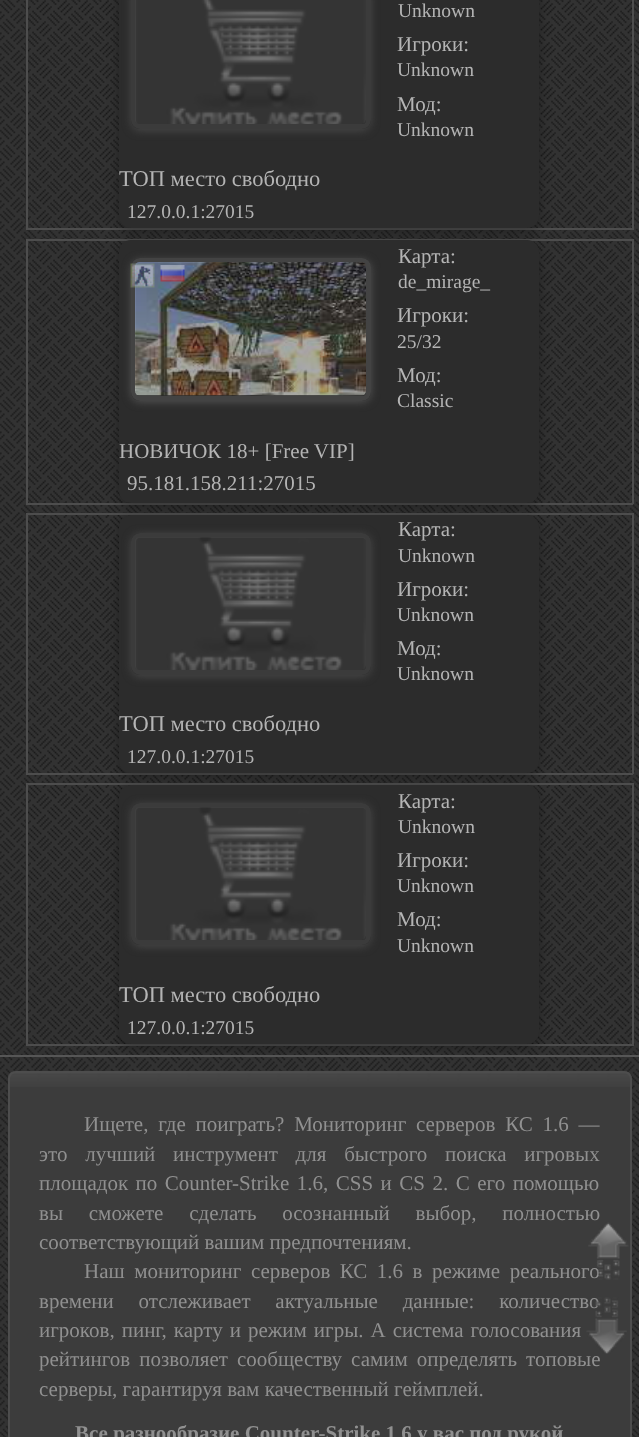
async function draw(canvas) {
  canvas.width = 639;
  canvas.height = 1437;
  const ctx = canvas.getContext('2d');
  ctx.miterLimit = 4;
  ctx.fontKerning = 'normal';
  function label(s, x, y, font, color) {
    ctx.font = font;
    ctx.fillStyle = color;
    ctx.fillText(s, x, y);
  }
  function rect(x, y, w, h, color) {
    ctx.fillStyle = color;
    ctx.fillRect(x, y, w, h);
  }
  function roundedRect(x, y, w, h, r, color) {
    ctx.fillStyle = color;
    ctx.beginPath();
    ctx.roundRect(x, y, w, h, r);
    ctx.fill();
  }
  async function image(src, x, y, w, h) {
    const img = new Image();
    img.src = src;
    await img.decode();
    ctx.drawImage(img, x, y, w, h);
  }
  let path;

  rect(0, 0, 639, 1437, '#fff');
  await image('assets/img1.png', 0, 0, 639, 1437);
  rect(0, 1055, 639, 2, '#565656');
  roundedRect(26, -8, 607, 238, 8, '#3c3c3c');
  await image('assets/img2.png', 25, 0, 607, 228);
  rect(632, 0, 2, 230, '#4d4d4d');
  rect(26, 228, 607, 2, '#4d4d4d');
  rect(26, 0, 2, 230, '#4d4d4d');
  ctx.fillStyle = '#0000004d';
  ctx.filter = 'blur(6px)';
  ctx.beginPath();
  ctx.roundRect(119, -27, 420, 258, 12);
  ctx.fill();
  ctx.filter = 'none';
  roundedRect(119, -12, 420, 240, 12, '#2c2c2c');
  ctx.save();
  path = new Path2D('M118 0H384V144H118ZM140-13H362C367-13 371-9 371-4V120C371 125 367 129 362 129H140C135 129 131 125 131 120V-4C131-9 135-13 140-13Z');
  ctx.clip(path, 'evenodd');
  ctx.fillStyle = '#464646';
  ctx.filter = 'blur(4px)';
  ctx.beginPath();
  ctx.roundRect(131, -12, 240, 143, 9);
  ctx.fill();
  ctx.filter = 'none';
  ctx.restore();
  ctx.beginPath();
  ctx.roundRect(133.5, -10.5, 235, 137, 6.5);
  ctx.strokeStyle = '#3b3b3b';
  ctx.lineWidth = 5;
  ctx.stroke();
  await image('assets/img3.png', 135, 0, 231, 124);
  label('Unknown', 398, 17, '19.5px Liberation Serif', '#b4b4b4');
  label('Игроки:', 397, 51, '21px Liberation Serif', '#b4b4b4');
  label('Unknown', 397, 76, '19.5px Liberation Serif', '#b4b4b4');
  label('Мод:', 397, 111, '21px Liberation Serif', '#b4b4b4');
  label('Unknown', 397, 136, '19.5px Liberation Serif', '#b4b4b4');
  label('ТОП место свободно', 119, 186, '22.5px Liberation Serif', '#b4b4b4');
  label('127.0.0.1:27015', 127, 218, '19.5px Liberation Serif', '#b4b4b4');
  roundedRect(26, 239, 607, 265, 8, '#3c3c3c');
  await image('assets/img4.png', 28, 238, 604, 265);
  rect(26, 239, 607, 2, '#4d4d4d');
  rect(632, 239, 2, 265, '#4d4d4d');
  rect(26, 503, 607, 2, '#4d4d4d');
  rect(26, 239, 2, 265, '#4d4d4d');
  ctx.fillStyle = '#0000004d';
  ctx.filter = 'blur(6px)';
  ctx.beginPath();
  ctx.roundRect(119, 243, 420, 263, 12);
  ctx.fill();
  ctx.filter = 'none';
  roundedRect(119, 240, 420, 263, 12, '#2c2c2c');
  ctx.save();
  path = new Path2D('M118 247H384V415H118ZM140 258H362C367 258 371 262 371 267V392C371 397 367 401 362 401H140C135 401 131 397 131 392V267C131 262 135 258 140 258Z');
  ctx.clip(path, 'evenodd');
  ctx.fillStyle = '#525252';
  ctx.filter = 'blur(4px)';
  ctx.beginPath();
  ctx.roundRect(131, 260, 240, 142, 9);
  ctx.fill();
  ctx.filter = 'none';
  ctx.restore();
  ctx.beginPath();
  ctx.roundRect(133.5, 260.5, 235, 138, 6.5);
  ctx.strokeStyle = '#434343';
  ctx.stroke();
  await image('assets/img5.png', 135, 262, 231, 134);
  await image('assets/img6.png', 130, 263, 25, 25);
  await image('assets/img7.png', 160, 265, 25, 17);
  label('Карта:', 398, 263, '21px Liberation Serif', '#b4b4b4');
  label('de_mirage_', 398, 288, '19.5px Liberation Serif', '#b4b4b4');
  label('Игроки:', 397, 322, '21px Liberation Serif', '#b4b4b4');
  label('25/32', 397, 348, '19.5px Liberation Serif', '#b4b4b4');
  label('Мод:', 397, 382, '21px Liberation Serif', '#b4b4b4');
  label('Classic', 397, 407, '19.5px Liberation Serif', '#b4b4b4');
  label('НОВИЧОК 18+ [Free VIP]', 119, 458, '21px Liberation Serif', '#b4b4b4');
  label('95.181.158.211:27015', 127, 490, '21px Liberation Serif', '#b4b4b4');
  roundedRect(26, 513, 607, 261, 8, '#3c3c3c');
  await image('assets/img8.png', 28, 512, 604, 261);
  rect(26, 513, 607, 2, '#4d4d4d');
  rect(632, 513, 2, 261, '#4d4d4d');
  rect(26, 773, 607, 2, '#4d4d4d');
  rect(26, 513, 2, 261, '#4d4d4d');
  ctx.fillStyle = '#0000004d';
  ctx.filter = 'blur(6px)';
  ctx.beginPath();
  ctx.roundRect(119, 518, 420, 258, 12);
  ctx.fill();
  ctx.filter = 'none';
  roundedRect(119, 515, 420, 258, 12, '#2c2c2c');
  ctx.save();
  path = new Path2D('M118 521H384V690H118ZM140 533H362C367 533 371 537 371 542V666C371 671 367 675 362 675H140C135 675 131 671 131 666V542C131 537 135 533 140 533Z');
  ctx.clip(path, 'evenodd');
  ctx.fillStyle = '#464646';
  ctx.filter = 'blur(4px)';
  ctx.beginPath();
  ctx.roundRect(131, 534, 240, 143, 9);
  ctx.fill();
  ctx.filter = 'none';
  ctx.restore();
  ctx.beginPath();
  ctx.roundRect(133.5, 535.5, 235, 137, 6.5);
  ctx.strokeStyle = '#3b3b3b';
  ctx.stroke();
  await image('assets/img9.png', 135, 537, 231, 133);
  label('Карта:', 398, 536, '21px Liberation Serif', '#b4b4b4');
  label('Unknown', 398, 562, '19.5px Liberation Serif', '#b4b4b4');
  label('Игроки:', 397, 596, '21px Liberation Serif', '#b4b4b4');
  label('Unknown', 397, 621, '19.5px Liberation Serif', '#b4b4b4');
  label('Мод:', 397, 655, '21px Liberation Serif', '#b4b4b4');
  label('Unknown', 397, 680, '19.5px Liberation Serif', '#b4b4b4');
  label('ТОП место свободно', 119, 731, '22.5px Liberation Serif', '#b4b4b4');
  label('127.0.0.1:27015', 127, 763, '19.5px Liberation Serif', '#b4b4b4');
  roundedRect(26, 783, 607, 263, 8, '#3c3c3c');
  await image('assets/img10.png', 25, 782, 607, 262);
  rect(26, 783, 607, 2, '#4d4d4d');
  rect(632, 783, 2, 263, '#4d4d4d');
  rect(26, 1044, 607, 2, '#4d4d4d');
  rect(26, 783, 2, 263, '#4d4d4d');
  ctx.fillStyle = '#0000004d';
  ctx.filter = 'blur(6px)';
  ctx.beginPath();
  ctx.roundRect(119, 788, 420, 259, 12);
  ctx.fill();
  ctx.filter = 'none';
  roundedRect(119, 785, 420, 259, 12, '#2c2c2c');
  ctx.save();
  path = new Path2D('M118 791H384V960H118ZM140 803H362C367 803 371 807 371 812V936C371 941 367 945 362 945H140C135 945 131 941 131 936V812C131 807 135 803 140 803Z');
  ctx.clip(path, 'evenodd');
  ctx.fillStyle = '#464646';
  ctx.filter = 'blur(4px)';
  ctx.beginPath();
  ctx.roundRect(131, 804, 240, 143, 9);
  ctx.fill();
  ctx.filter = 'none';
  ctx.restore();
  ctx.beginPath();
  ctx.roundRect(133.5, 805.5, 235, 137, 6.5);
  ctx.stroke();
  await image('assets/img11.png', 135, 807, 231, 133);
  label('Карта:', 398, 808, '21px Liberation Serif', '#b4b4b4');
  label('Unknown', 398, 833, '19.5px Liberation Serif', '#b4b4b4');
  label('Игроки:', 397, 867, '21px Liberation Serif', '#b4b4b4');
  label('Unknown', 397, 892, '19.5px Liberation Serif', '#b4b4b4');
  label('Мод:', 397, 926, '21px Liberation Serif', '#b4b4b4');
  label('Unknown', 397, 952, '19.5px Liberation Serif', '#b4b4b4');
  label('ТОП место свободно', 119, 1002, '22.5px Liberation Serif', '#b4b4b4');
  label('127.0.0.1:27015', 127, 1034, '19.5px Liberation Serif', '#b4b4b4');
  roundedRect(8, 1071, 624, 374, 8, '#3c3c3c');
  await image('assets/img12.png', 8, 1072, 623, 15);
  ctx.beginPath();
  ctx.roundRect(9, 1072, 622, 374, 7);
  ctx.strokeStyle = '#4d4d4d';
  ctx.lineWidth = 2;
  ctx.stroke();
  ctx.wordSpacing = '4.5px';
  label('Ищете, где поиграть? Мониторинг серверов КС 1.6 —', 84, 1131, '21px Liberation Serif', '#909090');
  ctx.wordSpacing = '12.5px';
  label('это лучший инструмент для быстрого поиска игровых', 39, 1161, '21px Liberation Serif', '#909090');
  ctx.wordSpacing = '2.25px';
  label('площадок по Counter-Strike 1.6, CSS и CS 2. С его помощью', 39, 1190, '21px Liberation Serif', '#909090');
  ctx.wordSpacing = '20.5px';
  label('вы сможете сделать осознанный выбор, полностью', 39, 1220, '21px Liberation Serif', '#909090');
  ctx.wordSpacing = '0px';
  label('соответствующий вашим предпочтениям.', 39, 1249, '21px Liberation Serif', '#909090');
  ctx.wordSpacing = '4.25px';
  label('Наш мониторинг серверов КС 1.6 в режиме реального', 84, 1278, '21px Liberation Serif', '#909090');
  ctx.wordSpacing = '19.5px';
  label('времени отслеживает актуальные данные: количество', 39, 1308, '21px Liberation Serif', '#909090');
  ctx.wordSpacing = '1.75px';
  label('игроков, пинг, карту и режим игры. А система голосования', 39, 1337, '21px Liberation Serif', '#909090');
  ctx.wordSpacing = '3.75px';
  label('рейтингов позволяет сообществу самим определять топовые', 39, 1366, '21px Liberation Serif', '#909090');
  ctx.wordSpacing = '0px';
  label('серверы, гарантируя вам качественный геймплей.', 39, 1396, '21px Liberation Serif', '#909090');
  label('Все разнообразие Counter-Strike 1.6 у вас под рукой', 75, 1440, 'bold 21px Liberation Serif', '#909090');
  await image('assets/img13.png', 588, 1222, 41, 58);
  await image('assets/img14.png', 586, 1297, 41, 57);
}

draw(document.querySelector('canvas'));
